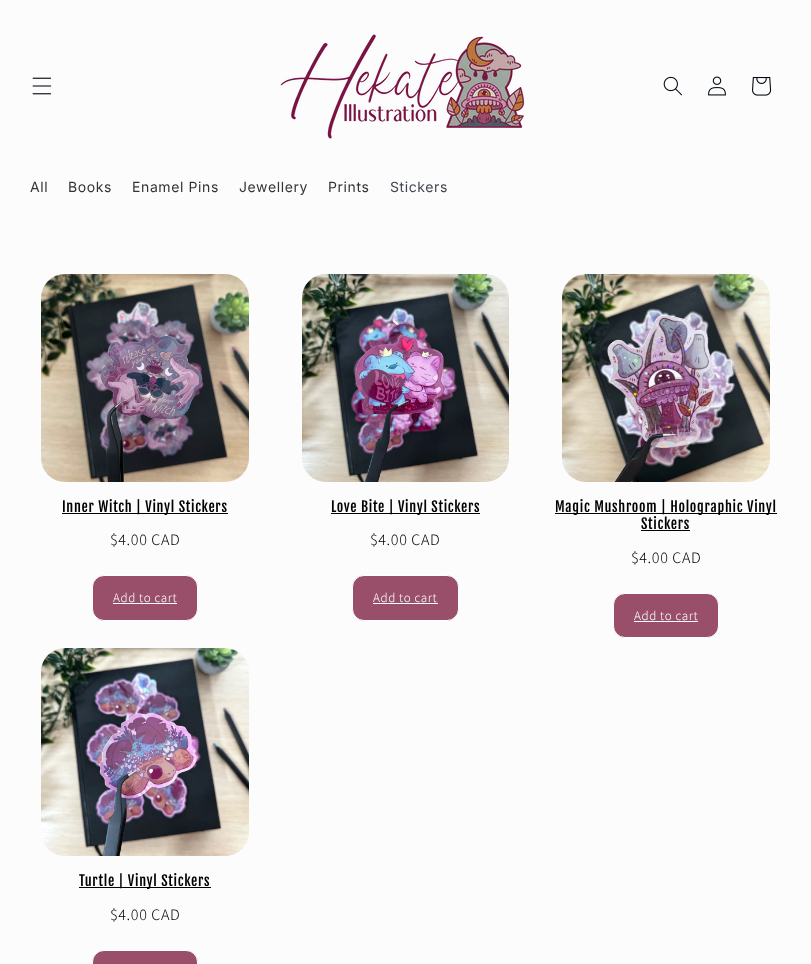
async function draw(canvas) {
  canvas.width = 811;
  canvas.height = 964;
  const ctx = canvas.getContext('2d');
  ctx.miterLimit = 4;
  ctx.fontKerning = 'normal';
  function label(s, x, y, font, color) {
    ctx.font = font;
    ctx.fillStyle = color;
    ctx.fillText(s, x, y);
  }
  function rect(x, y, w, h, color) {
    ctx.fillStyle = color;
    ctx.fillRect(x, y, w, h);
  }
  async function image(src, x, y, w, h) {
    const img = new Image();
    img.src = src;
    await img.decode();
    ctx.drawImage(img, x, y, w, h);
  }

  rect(0, 0, 811, 964, '#fcfcfc');
  await image('assets/img1.png', 32, 77, 20, 18);
  await image('assets/img2.png', 280, 34, 245, 105);
  await image('assets/img3.png', 663, 76, 19, 20);
  await image('assets/img4.png', 708, 76, 18, 20);
  await image('assets/img5.png', 752, 77, 20, 19);
  ctx.letterSpacing = '0.6px';
  label('All', 30, 192, '14px Inter', '#333');
  label('Books', 68, 192, '14px Inter', '#333');
  label('Enamel Pins', 132, 192, '14px Inter', '#333');
  label('Jewellery', 239, 192, '14px Inter', '#333');
  label('Prints', 328, 192, '14px Inter', '#333');
  label('Stickers', 390, 192, '14px Inter', '#41464d');
  await image('assets/img6.png', 41, 274, 208, 208);
  rect(62, 513, 166, 1, '#000');
  ctx.letterSpacing = '0.7px';
  label('Inner Witch | Vinyl Stickers', 62, 512, '14px Fjalla One', '#000');
  ctx.letterSpacing = '0.6px';
  label('$4.00 CAD', 110, 545, '300 16px Assistant', '#000');
  ctx.fillStyle = '#994f6a';
  ctx.beginPath();
  ctx.roundRect(92.5, 575.5, 105, 45, 11.5);
  ctx.fill();
  ctx.strokeStyle = '#fff';
  ctx.stroke();
  label('Add to cart', 113, 602, '300 13px Assistant', '#fff');
  rect(113, 603, 64, 1, '#fff');
  await image('assets/img7.png', 302, 274, 207, 208);
  rect(331, 513, 149, 1, '#000');
  ctx.letterSpacing = '0.7px';
  label('Love Bite | Vinyl Stickers', 331, 512, '14px Fjalla One', '#000');
  ctx.letterSpacing = '0.6px';
  label('$4.00 CAD', 370, 545, '300 16px Assistant', '#000');
  ctx.fillStyle = '#994f6a';
  ctx.beginPath();
  ctx.roundRect(352.5, 575.5, 106, 45, 11.5);
  ctx.fill();
  ctx.stroke();
  label('Add to cart', 373, 602, '300 13px Assistant', '#fff');
  rect(373, 603, 65, 1, '#fff');
  await image('assets/img8.png', 562, 274, 208, 208);
  rect(555, 513, 222, 1, '#000');
  ctx.letterSpacing = '0.7px';
  label('Magic Mushroom | Holographic Vinyl', 555, 512, '14px Fjalla One', '#000');
  label('Stickers', 641, 529, '14px Fjalla One', '#000');
  rect(641, 530, 49, 1, '#000');
  ctx.letterSpacing = '0.6px';
  label('$4.00 CAD', 631, 563, '300 16px Assistant', '#000');
  ctx.fillStyle = '#994f6a';
  ctx.beginPath();
  ctx.roundRect(613.5, 593.5, 105, 44, 11.5);
  ctx.fill();
  ctx.stroke();
  label('Add to cart', 634, 620, '300 13px Assistant', '#fff');
  rect(634, 621, 64, 1, '#fff');
  await image('assets/img9.png', 41, 648, 208, 208);
  rect(79, 887, 132, 1, '#000');
  ctx.letterSpacing = '0.7px';
  label('Turtle | Vinyl Stickers', 79, 886, '14px Fjalla One', '#000');
  ctx.letterSpacing = '0.6px';
  label('$4.00 CAD', 110, 920, '300 16px Assistant', '#000');
  ctx.fillStyle = '#994f6a';
  ctx.beginPath();
  ctx.roundRect(92.5, 950.5, 105, 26, 11.5);
  ctx.fill();
  ctx.stroke();
}

draw(document.querySelector('canvas'));
